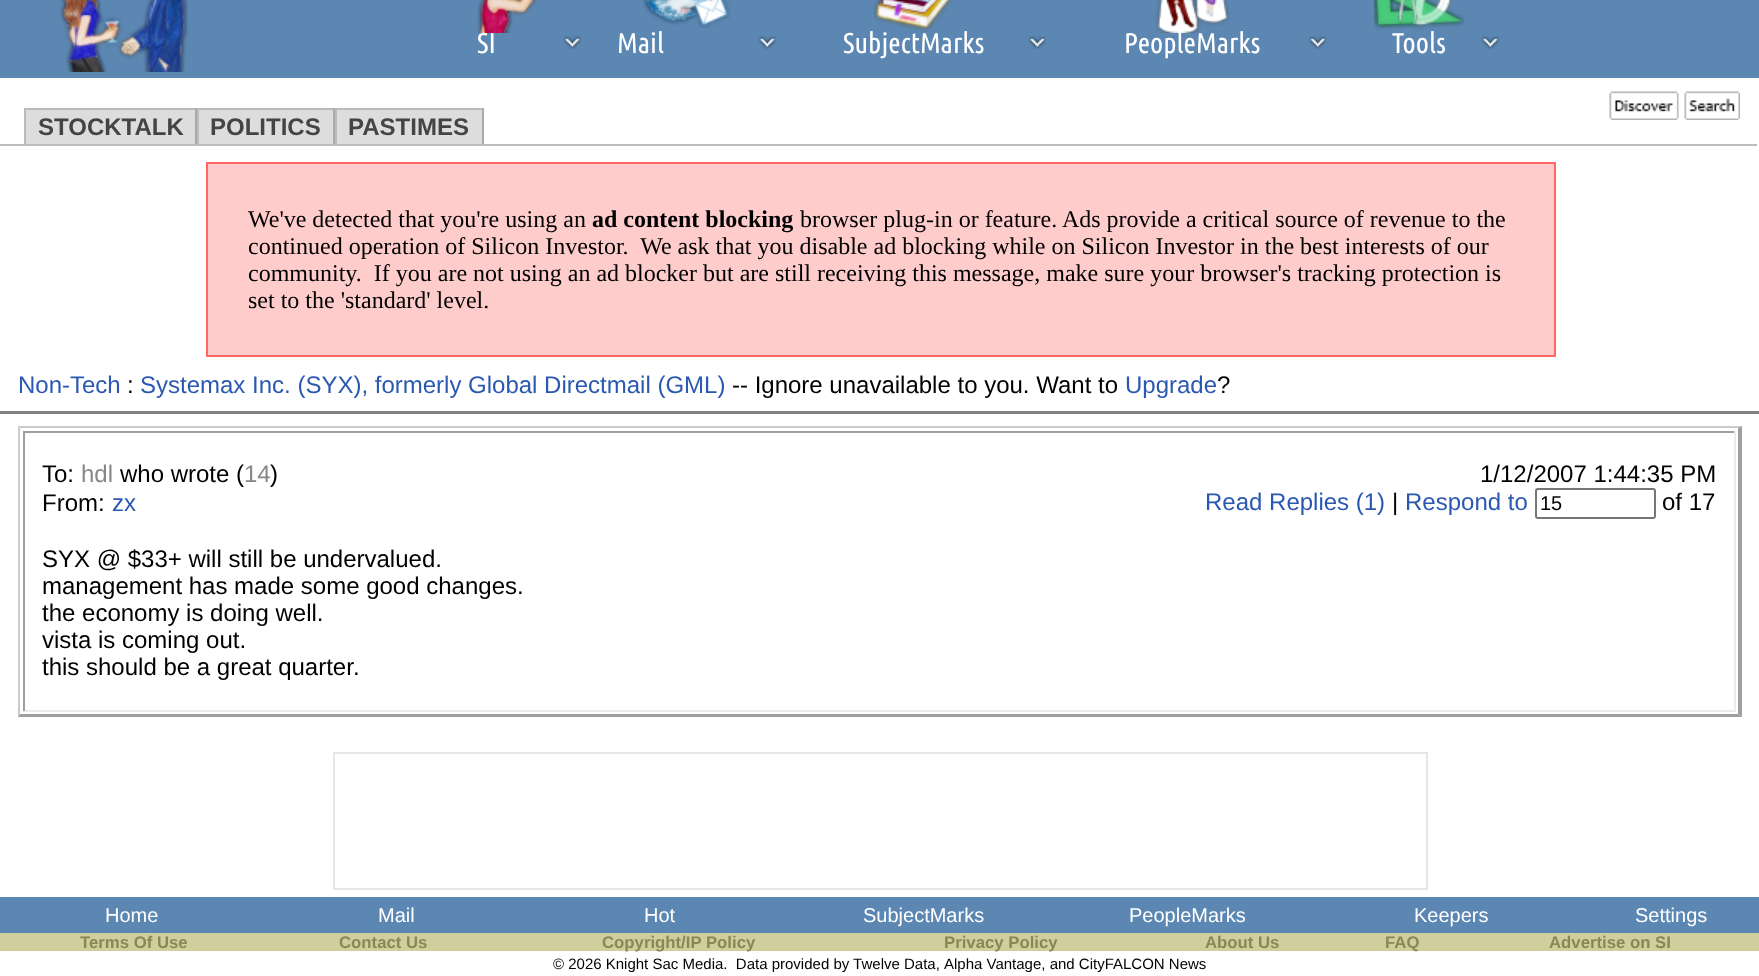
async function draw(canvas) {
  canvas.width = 1759;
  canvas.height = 976;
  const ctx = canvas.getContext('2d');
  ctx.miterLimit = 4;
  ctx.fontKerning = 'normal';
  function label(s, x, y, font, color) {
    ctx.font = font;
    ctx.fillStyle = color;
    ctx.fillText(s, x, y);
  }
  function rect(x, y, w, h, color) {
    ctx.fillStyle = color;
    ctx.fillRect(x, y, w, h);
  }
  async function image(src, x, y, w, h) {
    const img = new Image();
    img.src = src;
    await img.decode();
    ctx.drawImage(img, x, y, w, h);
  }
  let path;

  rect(0, 0, 1759, 976, '#fff');
  rect(0, 0, 1759, 78, '#5c87b2');
  await image('assets/img1.png', 60, 0, 128, 72);
  await image('assets/img2.png', 477, 0, 61, 33);
  await image('assets/img3.png', 563, 36, 19, 14);
  label('SI', 477, 53, '28.5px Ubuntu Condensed', '#fff');
  await image('assets/img4.png', 643, 0, 88, 28);
  await image('assets/img5.png', 758, 36, 19, 14);
  label('Mail', 617, 53, '28.5px Ubuntu Condensed', '#fff');
  await image('assets/img6.png', 873, 0, 81, 32);
  await image('assets/img7.png', 1028, 36, 19, 14);
  label('SubjectMarks', 843, 53, '28.5px Ubuntu Condensed', '#fff');
  await image('assets/img8.png', 1155, 0, 75, 33);
  await image('assets/img9.png', 1308, 36, 19, 14);
  label('PeopleMarks', 1124, 53, '28.5px Ubuntu Condensed', '#fff');
  await image('assets/img10.png', 1374, 0, 90, 30);
  await image('assets/img3.png', 1481, 36, 19, 14);
  label('Tools', 1392, 53, '28.5px Ubuntu Condensed', '#fff');
  await image('assets/img11.png', 1609, 91, 70, 29);
  await image('assets/img12.png', 1684, 91, 56, 29);
  rect(26, 110, 169, 34, '#ddd');
  rect(24, 108, 459, 2, '#bbb');
  rect(195, 108, 2, 38, '#aaa');
  rect(24, 108, 2, 38, '#bbb');
  label('STOCKTALK', 38, 135, 'bold 24px Liberation Sans', '#444');
  rect(199, 110, 134, 34, '#ddd');
  rect(333, 108, 2, 38, '#aaa');
  rect(197, 108, 2, 38, '#bbb');
  label('POLITICS', 210, 135, 'bold 24px Liberation Sans', '#444');
  rect(337, 110, 145, 34, '#ddd');
  rect(482, 108, 2, 38, '#aaa');
  rect(335, 108, 2, 38, '#bbb');
  label('PASTIMES', 348, 135, 'bold 24px Liberation Sans', '#444');
  rect(0, 144, 1757, 2, '#bbb');
  ctx.fillStyle = '#fcc';
  ctx.beginPath();
  ctx.rect(207, 163, 1348, 193);
  ctx.fill();
  ctx.strokeStyle = '#f66';
  ctx.lineWidth = 2;
  ctx.stroke();
  label('We\'ve detected that you\'re using an', 248, 227, '24px Liberation Serif', '#000');
  label('ad content blocking', 592, 227, 'bold 24px Liberation Serif', '#000');
  label('browser plug-in or feature. Ads provide a critical source of revenue to the', 800, 227, '24px Liberation Serif', '#000');
  label('continued operation of Silicon Investor.  We ask that you disable ad blocking while on Silicon Investor in the best interests of our', 248, 254, '24px Liberation Serif', '#000');
  label('community.  If you are not using an ad blocker but are still receiving this message, make sure your browser\'s tracking protection is', 248, 281, '24px Liberation Serif', '#000');
  label('set to the \'standard\' level.', 248, 308, '24px Liberation Serif', '#000');
  label('Non-Tech', 18, 393, '24px Liberation Sans', '#2b59b2');
  label(':', 127, 393, '24px Liberation Sans', '#000');
  label('Systemax Inc. (SYX), formerly Global Directmail (GML)', 140, 393, '24px Liberation Sans', '#2b59b2');
  label('-- Ignore unavailable to you. Want to', 732, 393, '24px Liberation Sans', '#000');
  label('Upgrade', 1125, 393, '24px Liberation Sans', '#2b59b2');
  label('?', 1217, 393, '24px Liberation Sans', '#000');
  rect(0, 411, 1759, 3, '#808080');
  ctx.fillStyle = '#cbcbcb';
  path = new Path2D('M18 426H1742L1738 428H20Z');
  ctx.fill(path);
  ctx.fillStyle = '#9f9f9f';
  path = new Path2D('M1742 426V717L1738 714V428Z');
  ctx.fill(path);
  path = new Path2D('M1742 717H18L20 714H1738Z');
  ctx.fill(path);
  ctx.fillStyle = '#cbcbcb';
  path = new Path2D('M18 717V426L20 428V714Z');
  ctx.fill(path);
  rect(23, 431, 1713, 2, '#9f9f9f');
  rect(1734, 431, 2, 280, '#ebebeb');
  rect(23, 710, 1713, 2, '#ebebeb');
  rect(23, 431, 2, 280, '#9f9f9f');
  label('To:', 42, 482, '24px Liberation Sans', '#000');
  label('hdl', 81, 482, '24px Liberation Sans', '#888');
  label('who wrote (', 120, 482, '24px Liberation Sans', '#000');
  label('14', 244, 482, '24px Liberation Sans', '#888');
  label(')', 270, 482, '24px Liberation Sans', '#000');
  label('1/12/2007 1:44:35 PM', 1480, 482, '24px Liberation Sans', '#000');
  label('From:', 42, 511, '24px Liberation Sans', '#000');
  label('zx', 112, 511, '24px Liberation Sans', '#2b59b2');
  label('Read Replies (1)', 1205, 510, '24px Liberation Sans', '#2b59b2');
  label('|', 1392, 510, '24px Liberation Sans', '#000');
  label('Respond to', 1405, 510, '24px Liberation Sans', '#2b59b2');
  ctx.beginPath();
  ctx.roundRect(1536, 489, 119, 29, 2);
  ctx.strokeStyle = '#767676';
  ctx.stroke();
  label('15', 1540, 510, '20px Liberation Sans', '#000');
  label('of 17', 1662, 510, '24px Liberation Sans', '#000');
  label('SYX @ $33+ will still be undervalued.', 42, 567, '24px Liberation Sans', '#000');
  label('management has made some good changes.', 42, 594, '24px Liberation Sans', '#000');
  label('the economy is doing well.', 42, 621, '24px Liberation Sans', '#000');
  label('vista is coming out.', 42, 648, '24px Liberation Sans', '#000');
  label('this should be a great quarter.', 42, 675, '24px Liberation Sans', '#000');
  ctx.strokeStyle = '#e6e6e6';
  ctx.strokeRect(334, 753, 1093, 136);
  rect(0, 897, 1759, 36, '#5c87b2');
  label('Home', 105, 922, '20px Liberation Sans', '#fff');
  label('Mail', 378, 922, '20px Liberation Sans', '#fff');
  label('Hot', 644, 922, '20px Liberation Sans', '#fff');
  label('SubjectMarks', 863, 922, '20px Liberation Sans', '#fff');
  label('PeopleMarks', 1129, 922, '20px Liberation Sans', '#fff');
  label('Keepers', 1414, 922, '20px Liberation Sans', '#fff');
  label('Settings', 1635, 922, '20px Liberation Sans', '#fff');
  rect(0, 933, 1759, 18, '#d0ce9d');
  label('Terms Of Use', 80, 948, 'bold 16.75px Liberation Sans', '#885');
  label('Contact Us', 339, 948, 'bold 16.75px Liberation Sans', '#885');
  label('Copyright/IP Policy', 602, 948, 'bold 16.75px Liberation Sans', '#885');
  label('Privacy Policy', 944, 948, 'bold 16.75px Liberation Sans', '#885');
  label('About Us', 1205, 948, 'bold 16.75px Liberation Sans', '#885');
  label('FAQ', 1385, 948, 'bold 16.75px Liberation Sans', '#885');
  label('Advertise on SI', 1549, 948, 'bold 16.75px Liberation Sans', '#885');
  label('© 2026 Knight Sac Media.  Data provided by Twelve Data,', 553, 969, '15px Liberation Sans', '#000');
  label('Alpha Vantage, and CityFALCON News', 944, 969, '15px Liberation Sans', '#000');
}

draw(document.querySelector('canvas'));
